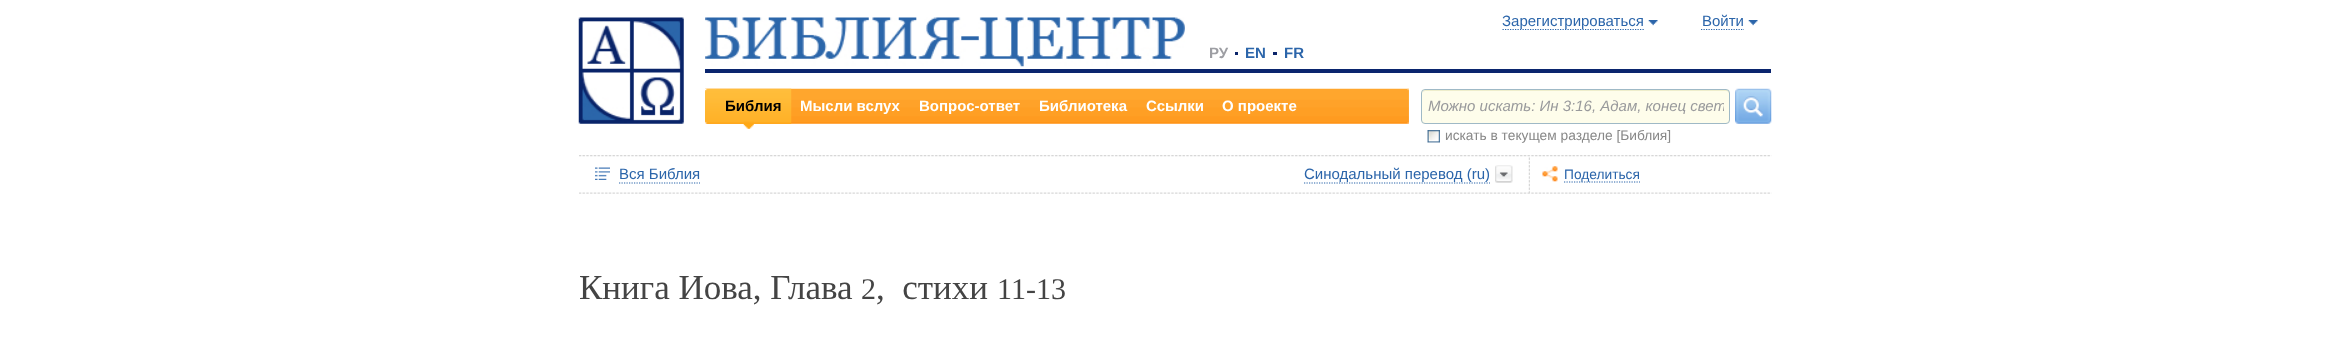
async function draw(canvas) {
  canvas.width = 2349;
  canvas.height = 340;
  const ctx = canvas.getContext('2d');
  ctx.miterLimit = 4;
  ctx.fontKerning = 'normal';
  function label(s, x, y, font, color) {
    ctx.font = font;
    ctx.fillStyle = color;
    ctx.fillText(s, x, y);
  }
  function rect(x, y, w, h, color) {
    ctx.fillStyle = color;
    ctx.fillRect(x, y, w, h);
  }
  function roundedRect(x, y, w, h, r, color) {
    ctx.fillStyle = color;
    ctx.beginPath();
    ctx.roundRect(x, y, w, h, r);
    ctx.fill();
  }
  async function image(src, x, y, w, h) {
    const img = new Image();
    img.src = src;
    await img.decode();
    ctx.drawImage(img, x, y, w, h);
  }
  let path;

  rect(0, 0, 2349, 340, '#fff');
  await image('assets/img1.png', 578, 17, 106, 107);
  await image('assets/img2.png', 705, 17, 480, 50);
  label('РУ', 1209, 58, 'bold 15px Liberation Sans', '#9d9ea3');
  rect(1235, 52, 3, 3, '#0a246a');
  label('EN', 1245, 58, 'bold 15px Liberation Sans', '#2b65aa');
  rect(1273, 52, 4, 3, '#0a246a');
  label('FR', 1284, 58, 'bold 15px Liberation Sans', '#2b65aa');
  await image('assets/img3.png', 1648, 20, 10, 6);
  path = new Path2D('M1502.5 29.5H1644');
  ctx.strokeStyle = '#2b65aa';
  ctx.lineWidth = 1.2;
  ctx.setLineDash([1.25, 1.25]);
  ctx.stroke(path);
  label('Зарегистрироваться', 1502, 26, '15px Liberation Sans', '#2b65aa');
  await image('assets/img4.png', 1748, 20, 10, 6);
  path = new Path2D('M1701 29.5H1744');
  ctx.stroke(path);
  label('Войти', 1702, 26, '15px Liberation Sans', '#2b65aa');
  rect(705, 69, 1066, 4, '#0a256e');
  await image('assets/img5.png', 705, 88, 704, 36);
  await image('assets/img6.png', 705, 88, 2, 36);
  await image('assets/img7.png', 1407, 88, 2, 36);
  await image('assets/img8.png', 705, 88, 87, 36);
  await image('assets/img9.png', 743, 121, 11, 8);
  label('Библия', 725, 111, 'bold 15px Liberation Sans', '#000');
  label('Мысли вслух', 800, 111, 'bold 15px Liberation Sans', '#fff');
  label('Вопрос-ответ', 919, 111, 'bold 15px Liberation Sans', '#fff');
  label('Библиотека', 1039, 111, 'bold 15px Liberation Sans', '#fff');
  label('Ссылки', 1146, 111, 'bold 15px Liberation Sans', '#fff');
  label('О проекте', 1222, 111, 'bold 15px Liberation Sans', '#fff');
  roundedRect(1421, 89, 309, 35, 4, '#fefdeb');
  ctx.fillStyle = '#eeedcb';
  path = new Path2D('M1425 91H1726C1728 91 1729 92 1729 94V92C1729 91 1728 90 1726 90H1426C1424 90 1423 91 1423 92Z');
  ctx.fill(path);
  ctx.beginPath();
  ctx.roundRect(1421.5, 89.5, 308, 34, 3.5);
  ctx.strokeStyle = '#9fb9c6';
  ctx.lineWidth = 1;
  ctx.setLineDash([]);
  ctx.stroke();
  ctx.save();
  ctx.beginPath();
  ctx.rect(1428, 98, 296, 17);
  ctx.clip();
  label('Можно искать: Ин 3:16, Адам, конец свет', 1428, 111, 'italic 15px Liberation Sans', '#999a9c');
  ctx.restore();
  await image('assets/img10.png', 1735, 88, 37, 36);
  await image('assets/img11.png', 1427, 130, 13, 13);
  label('искать в текущем разделе [Библия]', 1445, 140, '13.75px Liberation Sans', '#888');
  await image('assets/img12.png', 579, 155, 1193, 39);
  await image('assets/img13.png', 595, 167, 15, 13);
  label('Вся Библия', 619, 179, '15px Liberation Sans', '#2b65aa');
  path = new Path2D('M619 183H700');
  ctx.strokeStyle = '#2b65aa';
  ctx.lineWidth = 1.2;
  ctx.setLineDash([1.25, 1.25]);
  ctx.stroke(path);
  path = new Path2D('M1304 183H1490');
  ctx.stroke(path);
  label('Синодальный перевод (ru)', 1304, 179, '15px Liberation Sans', '#2b65aa');
  await image('assets/img14.png', 1495, 165, 18, 18);
  await image('assets/img15.png', 1528, 157, 2, 36);
  await image('assets/img16.png', 1542, 166, 16, 16);
  path = new Path2D('M1564 182H1640');
  ctx.stroke(path);
  label('Поделиться', 1564, 179, '13.75px Liberation Sans', '#2b65aa');
  label('Книга Иова, Глава', 579, 299, '35px Liberation Serif', '#444');
  label('2', 861, 299, '30px Liberation Serif', '#444');
  label(',  стихи', 876, 299, '35px Liberation Serif', '#444');
  label('11-13', 997, 299, '30px Liberation Serif', '#444');
}

draw(document.querySelector('canvas'));
